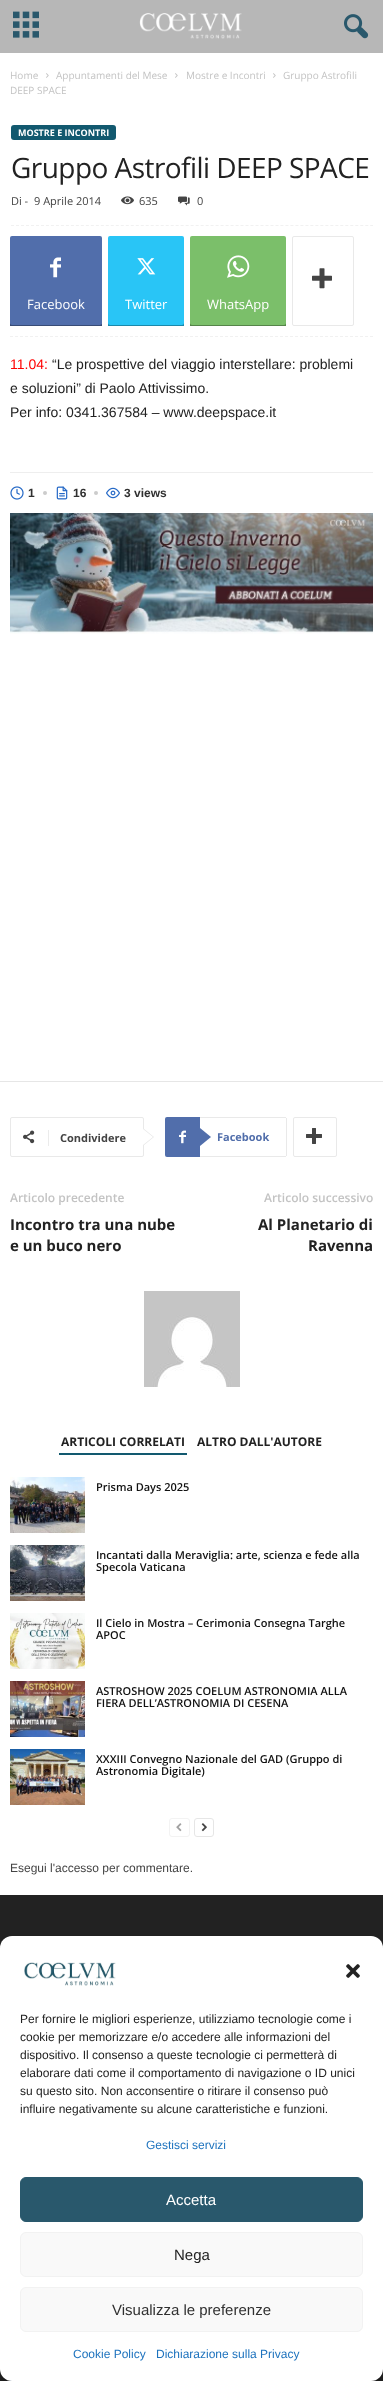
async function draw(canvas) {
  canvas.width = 383;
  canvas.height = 2381;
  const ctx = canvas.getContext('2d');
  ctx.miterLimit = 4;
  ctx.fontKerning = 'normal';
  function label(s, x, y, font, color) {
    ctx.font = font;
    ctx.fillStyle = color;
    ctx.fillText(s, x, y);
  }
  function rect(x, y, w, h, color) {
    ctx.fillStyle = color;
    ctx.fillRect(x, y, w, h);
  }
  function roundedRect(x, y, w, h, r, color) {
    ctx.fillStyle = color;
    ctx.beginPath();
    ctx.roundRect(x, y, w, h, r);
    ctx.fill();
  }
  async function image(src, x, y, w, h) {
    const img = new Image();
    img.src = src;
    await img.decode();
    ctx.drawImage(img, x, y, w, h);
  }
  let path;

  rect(0, 0, 383, 2381, '#fff');
  rect(0, 0, 383, 53, '#b7b7b7');
  await image('assets/img1.png', 13, 11, 26, 27);
  await image('assets/img2.png', 139, 13, 103, 26);
  await image('assets/img3.png', 344, 14, 25, 25);
  label('Home', 10, 79, '10px Open Sans', '#c3c3c3');
  await image('assets/img4.png', 46, 73, 3, 5);
  label('Appuntamenti del Mese', 56, 79, '10px Open Sans', '#c3c3c3');
  await image('assets/img4.png', 175, 73, 3, 5);
  label('Mostre e Incontri', 186, 79, '10px Open Sans', '#c3c3c3');
  await image('assets/img4.png', 273, 73, 3, 5);
  label('Gruppo Astrofili', 283, 79, '10px Open Sans', '#c3c3c3');
  label('DEEP SPACE', 10, 94, '10px Open Sans', '#c3c3c3');
  roundedRect(11, 125, 105, 15, 3, '#12596f');
  label('MOSTRE E INCONTRI', 18, 136, 'bold 9px Open Sans', '#fff');
  ctx.letterSpacing = '-0.55px';
  label('Gruppo Astrofili DEEP SPACE', 11, 178, '28px Open Sans', '#222');
  path = new Path2D('M11 225.5H373');
  ctx.strokeStyle = '#f1f1f1';
  ctx.setLineDash([3, 1.99]);
  ctx.stroke(path);
  ctx.letterSpacing = '0px';
  label('Di -', 11, 205, '11px Open Sans', '#444');
  label('9 Aprile 2014', 34, 205, '11px Open Sans', '#444');
  await image('assets/img5.png', 121, 196, 13, 9);
  label('635', 139, 205, '11px Open Sans', '#444');
  await image('assets/img6.png', 178, 196, 12, 10);
  label('0', 197, 205, '11px Open Sans', '#444');
  path = new Path2D('M10 336.5H373');
  ctx.setLineDash([3, 2]);
  ctx.stroke(path);
  ctx.fillStyle = '#516eab';
  ctx.beginPath();
  ctx.roundRect(10, 236, 92, 62, [2, 2, 0, 0]);
  ctx.fill();
  await image('assets/img7.png', 50, 257, 11, 21);
  rect(10, 298, 92, 27, '#516eab');
  ctx.save();
  ctx.beginPath();
  ctx.rect(10, 236, 92, 90);
  ctx.clip();
  ctx.fillStyle = '#384c76';
  path = new Path2D('M10 323V326C10 327 11 328 12 328H100C101 328 102 327 102 326V323V324L100 325H12C11 325 10 324 10 323Z');
  ctx.fill(path);
  ctx.restore();
  label('Facebook', 27, 309, '13px Open Sans', '#fff');
  ctx.fillStyle = '#29c5f6';
  ctx.beginPath();
  ctx.roundRect(108, 236, 76, 62, [2, 2, 0, 0]);
  ctx.fill();
  await image('assets/img8.png', 137, 258, 19, 17);
  rect(108, 298, 76, 27, '#29c5f6');
  ctx.save();
  ctx.beginPath();
  ctx.rect(108, 236, 76, 90);
  ctx.clip();
  ctx.fillStyle = '#1c88aa';
  path = new Path2D('M108 323V326C108 327 109 328 110 328H182C183 328 184 327 184 326V323C184 324 183 325 182 325H110C109 325 108 324 108 323Z');
  ctx.fill(path);
  ctx.restore();
  label('Twitter', 125, 309, '13px Open Sans', '#fff');
  ctx.fillStyle = '#7bbf6a';
  ctx.beginPath();
  ctx.roundRect(190, 236, 96, 62, [2, 2, 0, 0]);
  ctx.fill();
  await image('assets/img9.png', 227, 255, 23, 23);
  rect(190, 298, 96, 27, '#7bbf6a');
  ctx.save();
  ctx.beginPath();
  ctx.rect(190, 236, 96, 90);
  ctx.clip();
  ctx.fillStyle = '#558449';
  path = new Path2D('M190 323V326C190 327 191 328 192 328H284C285 328 286 327 286 326V323C286 324 285 325 284 325H192C191 325 190 324 190 323Z');
  ctx.fill(path);
  ctx.restore();
  label('WhatsApp', 207, 309, '13px Open Sans', '#fff');
  ctx.beginPath();
  ctx.roundRect(292.5, 236.5, 61, 89, 1.5);
  ctx.strokeStyle = '#e9e9e9';
  ctx.setLineDash([]);
  ctx.stroke();
  await image('assets/img10.png', 312, 268, 20, 21);
  label('11.04:', 10, 369, '14px Liberation Sans', '#f00');
  label('“Le prospettive del viaggio interstellare: problemi', 52, 369, '14px Liberation Sans', '#222');
  label('e soluzioni” di Paolo Attivissimo.', 10, 393, '14px Liberation Sans', '#222');
  label('Per info: 0341.367584 – www.deepspace.it', 10, 417, '14px Liberation Sans', '#222');
  rect(10, 472, 363, 1, '#eee');
  await image('assets/img11.png', 10, 486, 14, 14);
  label('1', 28, 497, 'bold 12px Liberation Sans', '#303030');
  ctx.fillStyle = '#ccc';
  ctx.beginPath();
  ctx.arc(45, 493, 2, 0, 2 * Math.PI);
  ctx.fill();
  await image('assets/img12.png', 56, 486, 12, 14);
  label('16', 73, 497, 'bold 12px Liberation Sans', '#303030');
  ctx.fillStyle = '#ccc';
  ctx.beginPath();
  ctx.arc(96, 493, 2, 0, 2 * Math.PI);
  ctx.fill();
  await image('assets/img13.png', 106, 487, 14, 12);
  label('3 views', 124, 497, 'bold 12px Liberation Sans', '#303030');
  await image('assets/img14.png', 10, 513, 363, 121);
  rect(0, 1081, 383, 1, '#e6e6e6');
  ctx.beginPath();
  ctx.roundRect(10.5, 1117.5, 133, 39, 1.5);
  ctx.stroke();
  ctx.fillStyle = '#e9e9e9';
  path = new Path2D('M143 1146V1128L154 1137Z');
  ctx.fill(path);
  await image('assets/img15.png', 23, 1130, 12, 14);
  rect(48, 1130, 1, 16, '#ebebeb');
  label('Condividere', 60, 1142, 'bold 11px Open Sans', '#444');
  ctx.fillStyle = '#fff';
  path = new Path2D('M143 1145V1129L153 1137Z');
  ctx.fill(path);
  rect(197, 1117, 89, 1, '#e9e9e9');
  rect(197, 1156, 89, 1, '#e9e9e9');
  ctx.fillStyle = '#516eab';
  ctx.beginPath();
  ctx.roundRect(165, 1117, 35, 40, [2, 0, 0, 2]);
  ctx.fill();
  await image('assets/img16.png', 179, 1130, 7, 14);
  path = new Path2D('M200 1146V1128L211 1137Z');
  ctx.fill(path);
  rect(286, 1118, 1, 38, '#e9e9e9');
  label('Facebook', 217, 1141, 'bold 11px Open Sans', '#516eab');
  ctx.beginPath();
  ctx.roundRect(293.5, 1117.5, 43, 39, 1.5);
  ctx.stroke();
  await image('assets/img17.png', 306, 1128, 16, 16);
  label('Articolo precedente', 10, 1202, '600 12px Open Sans', '#c3c3c3');
  label('Incontro tra una nube', 10, 1230, 'bold 15px Open Sans', '#222');
  label('e un buco nero', 10, 1251, 'bold 15px Open Sans', '#222');
  label('Articolo successivo', 264, 1202, '600 12px Open Sans', '#c3c3c3');
  label('Al Planetario di', 258, 1230, 'bold 15px Open Sans', '#222');
  label('Ravenna', 308, 1251, 'bold 15px Open Sans', '#222');
  await image('assets/img18.png', 144, 1291, 96, 96);
  label('ARTICOLI CORRELATI', 61, 1446, 'bold 12px Open Sans', '#222');
  rect(59, 1453, 128, 2, '#12596f');
  label('ALTRO DALL\'AUTORE', 197, 1446, 'bold 12px Open Sans', '#222');
  await image('assets/img19.png', 10, 1477, 75, 56);
  label('Prisma Days 2025', 96, 1491, '600 11px Open Sans', '#111');
  await image('assets/img20.png', 10, 1545, 75, 56);
  label('Incantati dalla Meraviglia: arte, scienza e fede alla', 96, 1559, '600 11px Open Sans', '#111');
  label('Specola Vaticana', 96, 1571, '600 11px Open Sans', '#111');
  await image('assets/img21.png', 10, 1613, 75, 56);
  label('Il Cielo in Mostra – Cerimonia Consegna Targhe', 96, 1627, '600 11px Open Sans', '#111');
  label('APOC', 96, 1639, '600 11px Open Sans', '#111');
  await image('assets/img22.png', 10, 1681, 75, 56);
  label('ASTROSHOW 2025 COELUM ASTRONOMIA ALLA', 96, 1695, '600 11px Open Sans', '#111');
  label('FIERA DELL’ASTRONOMIA DI CESENA', 96, 1707, '600 11px Open Sans', '#111');
  await image('assets/img23.png', 10, 1749, 75, 56);
  label('XXXIII Convegno Nazionale del GAD (Gruppo di', 96, 1763, '600 11px Open Sans', '#111');
  label('Astronomia Digitale)', 96, 1775, '600 11px Open Sans', '#111');
  ctx.beginPath();
  ctx.roundRect(169.5, 1818.5, 20, 18, 2.5);
  ctx.strokeStyle = '#f3f3f3';
  ctx.stroke();
  await image('assets/img24.png', 176, 1823, 6, 9);
  ctx.beginPath();
  ctx.roundRect(194.5, 1818.5, 19, 18, 2.5);
  ctx.strokeStyle = '#e6e6e6';
  ctx.stroke();
  await image('assets/img25.png', 201, 1823, 6, 9);
  label('Esegui l\'accesso per commentare.', 10, 1872, '12px Liberation Sans', '#444');
  rect(0, 1895, 383, 486, '#222');
  await image('assets/img26.png', 10, 2380, 2, 1);
  ctx.fillStyle = '#0000003b';
  ctx.filter = 'blur(3px)';
  ctx.beginPath();
  ctx.roundRect(0, 1942, 383, 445, 12);
  ctx.fill();
  ctx.filter = 'none';
  roundedRect(0, 1936, 383, 445, 12, '#fff');
  await image('assets/img27.png', 24, 1962, 92, 24);
  await image('assets/img28.png', 346, 1964, 14, 14);
  label('Per fornire le migliori esperienze, utilizziamo tecnologie come i', 20, 2023, '12px Liberation Sans', '#222');
  label('cookie per memorizzare e/o accedere alle informazioni del', 20, 2041, '12px Liberation Sans', '#222');
  label('dispositivo. Il consenso a queste tecnologie ci permetterà di', 20, 2059, '12px Liberation Sans', '#222');
  label('elaborare dati come il comportamento di navigazione o ID unici', 20, 2077, '12px Liberation Sans', '#222');
  label('su questo sito. Non acconsentire o ritirare il consenso può', 20, 2095, '12px Liberation Sans', '#222');
  label('influire negativamente su alcune caratteristiche e funzioni.', 20, 2113, '12px Liberation Sans', '#222');
  label('Gestisci servizi', 146, 2149, '12px Liberation Sans', '#1e73be');
  ctx.fillStyle = '#29586c';
  ctx.beginPath();
  ctx.roundRect(20.5, 2177.5, 342, 44, 5.5);
  ctx.fill();
  ctx.strokeStyle = '#29586c';
  ctx.stroke();
  label('Accetta', 166, 2205, '15px Liberation Sans', '#fff');
  ctx.fillStyle = '#f9f9f9';
  ctx.beginPath();
  ctx.roundRect(20.5, 2232.5, 342, 44, 5.5);
  ctx.fill();
  ctx.strokeStyle = '#f2f2f2';
  ctx.stroke();
  label('Nega', 174, 2260, '15px Liberation Sans', '#222');
  ctx.fillStyle = '#f9f9f9';
  ctx.beginPath();
  ctx.roundRect(20.5, 2287.5, 342, 44, 5.5);
  ctx.fill();
  ctx.stroke();
  label('Visualizza le preferenze', 112, 2315, '15px Liberation Sans', '#303030');
  label('Cookie Policy', 73, 2358, '12px Liberation Sans', '#1e73be');
  label('Dichiarazione sulla Privacy', 156, 2358, '12px Liberation Sans', '#1e73be');
}

draw(document.querySelector('canvas'));
